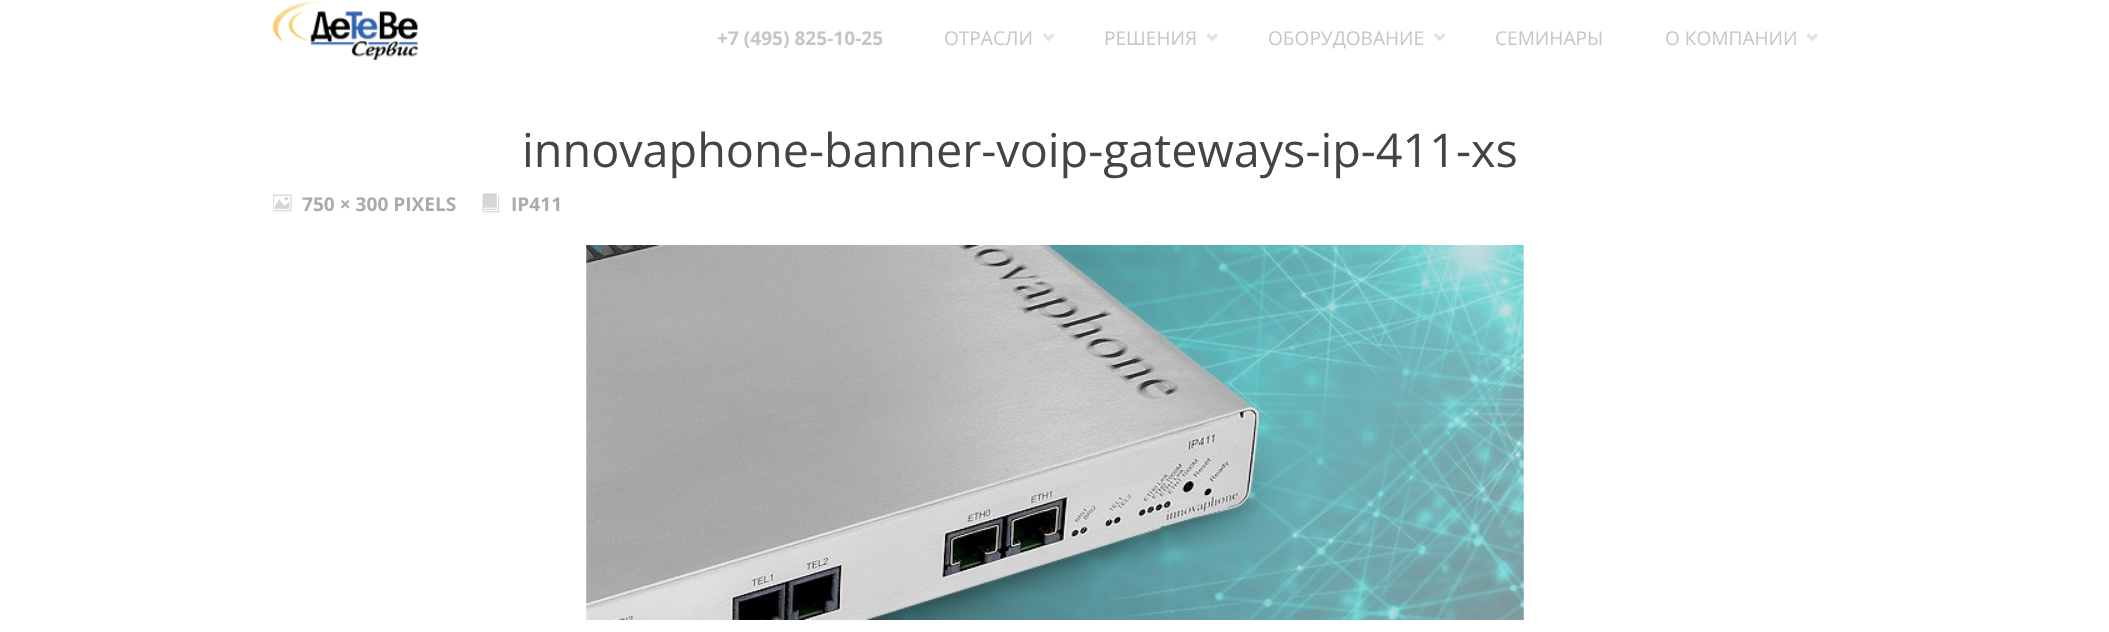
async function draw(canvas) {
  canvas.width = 2109;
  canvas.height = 632;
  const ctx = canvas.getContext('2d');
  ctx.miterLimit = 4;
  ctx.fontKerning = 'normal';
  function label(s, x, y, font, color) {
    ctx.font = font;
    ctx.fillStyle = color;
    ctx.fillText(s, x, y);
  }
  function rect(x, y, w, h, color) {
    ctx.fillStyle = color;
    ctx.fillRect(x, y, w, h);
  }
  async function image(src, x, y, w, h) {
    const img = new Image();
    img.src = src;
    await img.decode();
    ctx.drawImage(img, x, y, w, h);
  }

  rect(0, 0, 2109, 632, '#fff');
  await image('assets/img1.png', 272, 0, 146, 60);
  label('+7 (495) 825-10-25', 717, 45, 'bold 19.1px Open Sans', '#c6c6c6');
  label('ОТРАСЛИ', 944, 45, '19.1px Open Sans', '#c6c6c6');
  await image('assets/img2.png', 1042, 33, 13, 9);
  label('РЕШЕНИЯ', 1104, 45, '19.1px Open Sans', '#c6c6c6');
  await image('assets/img3.png', 1206, 33, 12, 9);
  label('ОБОРУДОВАНИЕ', 1268, 45, '19.1px Open Sans', '#c6c6c6');
  await image('assets/img4.png', 1434, 33, 12, 9);
  label('СЕМИНАРЫ', 1495, 45, '19.1px Open Sans', '#c6c6c6');
  label('О КОМПАНИИ', 1665, 45, '19.1px Open Sans', '#c6c6c6');
  await image('assets/img3.png', 1806, 33, 12, 9);
  label('innovaphone-banner-voip-gateways-ip-411-xs', 522, 167, '46.75px Open Sans', '#444');
  await image('assets/img5.png', 273, 194, 19, 18);
  label('750 × 300 PIXELS', 302, 211, 'bold 19.1px Open Sans', '#ababab');
  await image('assets/img6.png', 482, 193, 18, 20);
  label('IP411', 511, 211, 'bold 19.1px Open Sans', '#ababab');
  await image('assets/img7.png', 586, 245, 938, 375);
}

draw(document.querySelector('canvas'));
